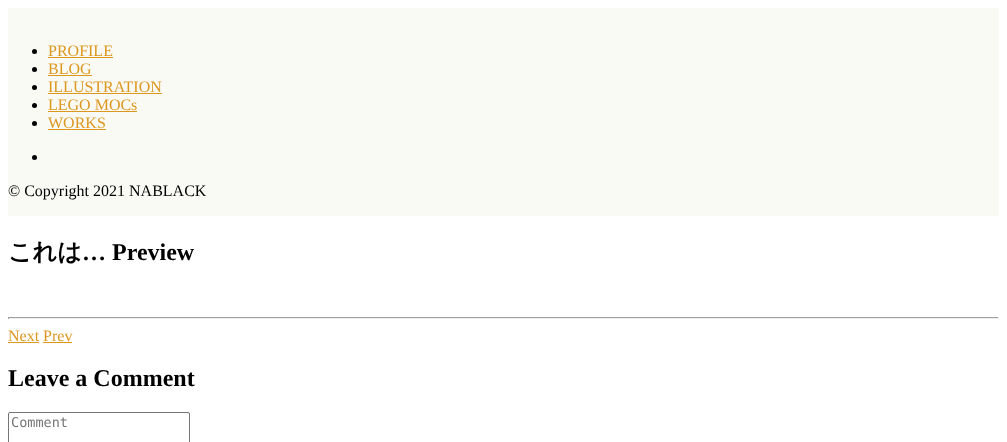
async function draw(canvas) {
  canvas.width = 1007;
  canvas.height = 442;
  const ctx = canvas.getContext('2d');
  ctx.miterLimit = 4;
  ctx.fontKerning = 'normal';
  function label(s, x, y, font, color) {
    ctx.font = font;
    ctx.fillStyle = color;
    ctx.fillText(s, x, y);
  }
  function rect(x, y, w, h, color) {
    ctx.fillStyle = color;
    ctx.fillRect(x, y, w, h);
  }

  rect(0, 0, 1007, 442, '#fff');
  rect(8, 8, 991, 208, '#fafaf5');
  ctx.fillStyle = '#000';
  ctx.beginPath();
  ctx.arc(34.5, 51.5, 2.5, 0, 2 * Math.PI);
  ctx.fill();
  label('PROFILE', 48, 56, '16px Liberation Serif', '#dc971f');
  rect(48, 57, 65, 1, '#dc971f');
  ctx.fillStyle = '#000';
  ctx.beginPath();
  ctx.arc(34.5, 69.5, 2.5, 0, 2 * Math.PI);
  ctx.fill();
  label('BLOG', 48, 74, '16px Liberation Serif', '#dc971f');
  rect(48, 75, 44, 1, '#dc971f');
  ctx.fillStyle = '#000';
  ctx.beginPath();
  ctx.arc(34.5, 87.5, 2.5, 0, 2 * Math.PI);
  ctx.fill();
  label('ILLUSTRATION', 48, 92, '16px Liberation Serif', '#dc971f');
  rect(48, 93, 114, 1, '#dc971f');
  ctx.fillStyle = '#000';
  ctx.beginPath();
  ctx.arc(34.5, 105.5, 2.5, 0, 2 * Math.PI);
  ctx.fill();
  label('LEGO MOCs', 48, 110, '16px Liberation Serif', '#dc971f');
  rect(48, 111, 89, 1, '#dc971f');
  ctx.fillStyle = '#000';
  ctx.beginPath();
  ctx.arc(34.5, 123.5, 2.5, 0, 2 * Math.PI);
  ctx.fill();
  label('WORKS', 48, 128, '16px Liberation Serif', '#dc971f');
  rect(48, 129, 58, 1, '#dc971f');
  ctx.fillStyle = '#000';
  ctx.beginPath();
  ctx.arc(34.5, 157.5, 2.5, 0, 2 * Math.PI);
  ctx.fill();
  label('© Copyright 2021 NABLACK', 8, 196, '16px Liberation Serif', '#000');
  label('これは', 8, 260, 'bold 24px WenQuanYi Zen Hei', '#000');
  label('… Preview', 82, 260, 'bold 24px Liberation Serif', '#000');
  rect(8, 317, 991, 1, '#9f9f9f');
  rect(998, 317, 1, 2, '#eee');
  rect(8, 318, 991, 1, '#eee');
  rect(8, 317, 1, 2, '#9f9f9f');
  label('Next Prev', 8, 341, '16px Liberation Serif', '#dc971f');
  rect(8, 342, 31, 1, '#dc971f');
  rect(43, 342, 29, 1, '#dc971f');
  label('Leave a Comment', 8, 386, 'bold 24px Liberation Serif', '#000');
  ctx.beginPath();
  ctx.roundRect(8.5, 412.5, 181, 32, 1.5);
  ctx.strokeStyle = '#767676';
  ctx.stroke();
  label('Comment', 11, 427, '13.5px DejaVu Sans Mono', '#757575');
}

draw(document.querySelector('canvas'));
